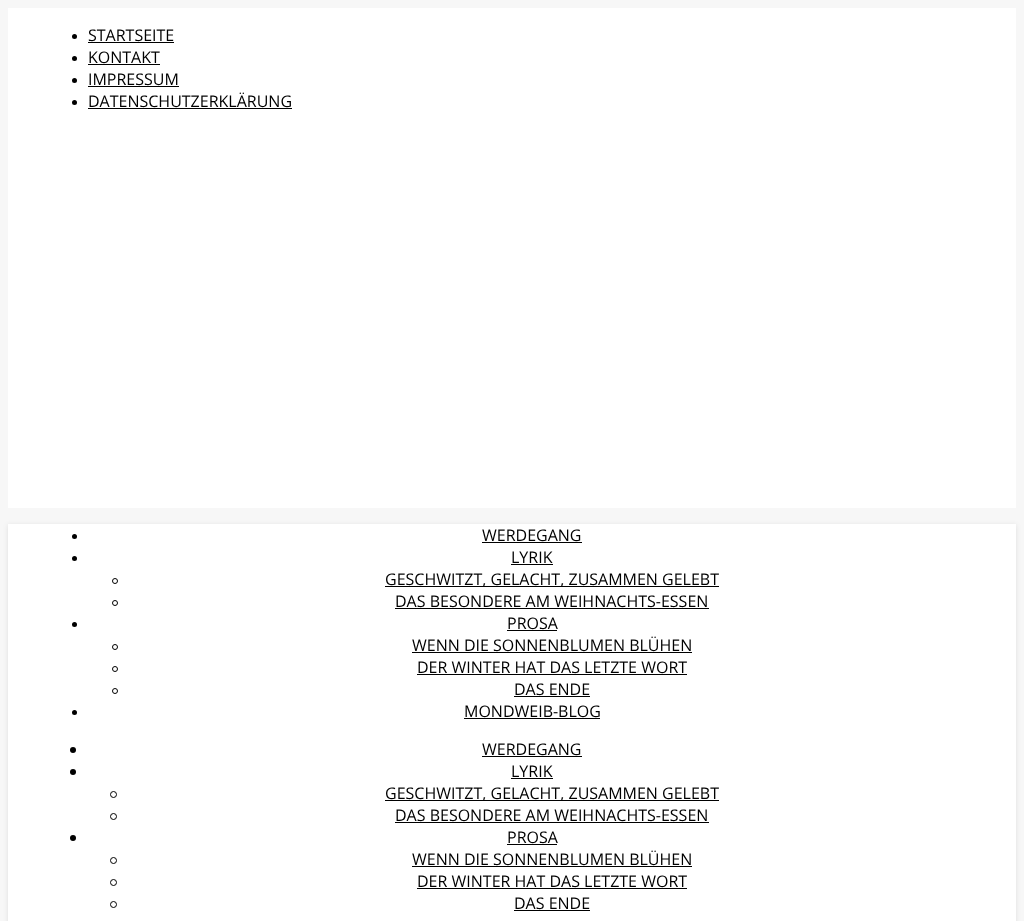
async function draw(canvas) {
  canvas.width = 1024;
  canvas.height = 921;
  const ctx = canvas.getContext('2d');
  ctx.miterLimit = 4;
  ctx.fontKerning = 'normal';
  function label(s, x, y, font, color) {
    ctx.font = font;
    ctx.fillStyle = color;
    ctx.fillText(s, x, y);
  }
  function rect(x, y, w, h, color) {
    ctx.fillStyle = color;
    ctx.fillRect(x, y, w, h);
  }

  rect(0, 0, 1024, 921, '#f7f7f7');
  rect(8, 8, 1008, 500, '#fff');
  ctx.fillStyle = '#000';
  ctx.beginPath();
  ctx.arc(74.5, 36.5, 2.5, 0, 2 * Math.PI);
  ctx.fill();
  label('STARTSEITE', 88, 41, '16px Open Sans', '#000');
  rect(88, 42, 86, 1, '#000');
  ctx.beginPath();
  ctx.arc(74.5, 58.5, 2.5, 0, 2 * Math.PI);
  ctx.fill();
  label('KONTAKT', 88, 63, '16px Open Sans', '#000');
  rect(88, 64, 72, 1, '#000');
  ctx.beginPath();
  ctx.arc(74.5, 80.5, 2.5, 0, 2 * Math.PI);
  ctx.fill();
  label('IMPRESSUM', 88, 85, '16px Open Sans', '#000');
  rect(88, 86, 91, 1, '#000');
  ctx.beginPath();
  ctx.arc(74.5, 102.5, 2.5, 0, 2 * Math.PI);
  ctx.fill();
  label('DATENSCHUTZERKLÄRUNG', 88, 107, '16px Open Sans', '#000');
  rect(88, 108, 204, 1, '#000');
  ctx.fillStyle = '#0000001a';
  ctx.filter = 'blur(2.5px)';
  ctx.beginPath();
  ctx.rect(8, 525, 1008, 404);
  ctx.fill();
  ctx.filter = 'none';
  rect(8, 524, 1008, 397, '#fff');
  ctx.fillStyle = '#000';
  ctx.beginPath();
  ctx.arc(74.5, 536.5, 2.5, 0, 2 * Math.PI);
  ctx.fill();
  label('WERDEGANG', 482, 541, '16px Open Sans', '#000');
  rect(482, 542, 100, 1, '#000');
  ctx.beginPath();
  ctx.arc(74.5, 558.5, 2.5, 0, 2 * Math.PI);
  ctx.fill();
  label('LYRIK', 511, 563, '16px Open Sans', '#000');
  rect(511, 564, 42, 1, '#000');
  ctx.beginPath();
  ctx.arc(115, 581, 2.5, 0, 2 * Math.PI);
  ctx.strokeStyle = '#000';
  ctx.stroke();
  rect(385, 586, 334, 1, '#000');
  label('GESCHWITZT, GELACHT, ZUSAMMEN GELEBT', 385, 585, '16px Open Sans', '#000');
  ctx.beginPath();
  ctx.arc(115, 603, 2.5, 0, 2 * Math.PI);
  ctx.stroke();
  label('DAS BESONDERE AM WEIHNACHTS-ESSEN', 395, 607, '16px Open Sans', '#000');
  rect(395, 608, 314, 1, '#000');
  ctx.beginPath();
  ctx.arc(74.5, 624.5, 2.5, 0, 2 * Math.PI);
  ctx.fill();
  label('PROSA', 507, 629, '16px Open Sans', '#000');
  rect(507, 630, 50, 1, '#000');
  ctx.beginPath();
  ctx.arc(115, 647, 2.5, 0, 2 * Math.PI);
  ctx.stroke();
  label('WENN DIE SONNENBLUMEN BLÜHEN', 412, 651, '16px Open Sans', '#000');
  rect(412, 652, 280, 1, '#000');
  ctx.beginPath();
  ctx.arc(115, 669, 2.5, 0, 2 * Math.PI);
  ctx.stroke();
  label('DER WINTER HAT DAS LETZTE WORT', 417, 673, '16px Open Sans', '#000');
  rect(417, 674, 270, 1, '#000');
  ctx.beginPath();
  ctx.arc(115, 691, 2.5, 0, 2 * Math.PI);
  ctx.stroke();
  label('DAS ENDE', 514, 695, '16px Open Sans', '#000');
  rect(514, 696, 76, 1, '#000');
  ctx.beginPath();
  ctx.arc(74.5, 712.5, 2.5, 0, 2 * Math.PI);
  ctx.fill();
  label('MONDWEIB-BLOG', 464, 717, '16px Open Sans', '#000');
  rect(464, 718, 136, 1, '#000');
  ctx.beginPath();
  ctx.arc(73, 750, 3, 0, 2 * Math.PI);
  ctx.fill();
  label('WERDEGANG', 482, 755, '16px Open Sans', '#000');
  rect(482, 756, 100, 1, '#000');
  ctx.beginPath();
  ctx.arc(73, 772, 3, 0, 2 * Math.PI);
  ctx.fill();
  label('LYRIK', 511, 777, '16px Open Sans', '#000');
  rect(511, 778, 42, 1, '#000');
  ctx.beginPath();
  ctx.arc(113.5, 794.5, 3, 0, 2 * Math.PI);
  ctx.stroke();
  rect(385, 800, 334, 1, '#000');
  label('GESCHWITZT, GELACHT, ZUSAMMEN GELEBT', 385, 799, '16px Open Sans', '#000');
  ctx.beginPath();
  ctx.arc(113.5, 816.5, 3, 0, 2 * Math.PI);
  ctx.stroke();
  label('DAS BESONDERE AM WEIHNACHTS-ESSEN', 395, 821, '16px Open Sans', '#000');
  rect(395, 822, 314, 1, '#000');
  ctx.beginPath();
  ctx.arc(73, 838, 3, 0, 2 * Math.PI);
  ctx.fill();
  label('PROSA', 507, 843, '16px Open Sans', '#000');
  rect(507, 844, 50, 1, '#000');
  ctx.beginPath();
  ctx.arc(113.5, 860.5, 3, 0, 2 * Math.PI);
  ctx.stroke();
  label('WENN DIE SONNENBLUMEN BLÜHEN', 412, 865, '16px Open Sans', '#000');
  rect(412, 866, 280, 1, '#000');
  ctx.beginPath();
  ctx.arc(113.5, 882.5, 3, 0, 2 * Math.PI);
  ctx.stroke();
  label('DER WINTER HAT DAS LETZTE WORT', 417, 887, '16px Open Sans', '#000');
  rect(417, 888, 270, 1, '#000');
  ctx.beginPath();
  ctx.arc(113.5, 904.5, 3, 0, 2 * Math.PI);
  ctx.stroke();
  label('DAS ENDE', 514, 909, '16px Open Sans', '#000');
  rect(514, 910, 76, 1, '#000');
}

draw(document.querySelector('canvas'));
